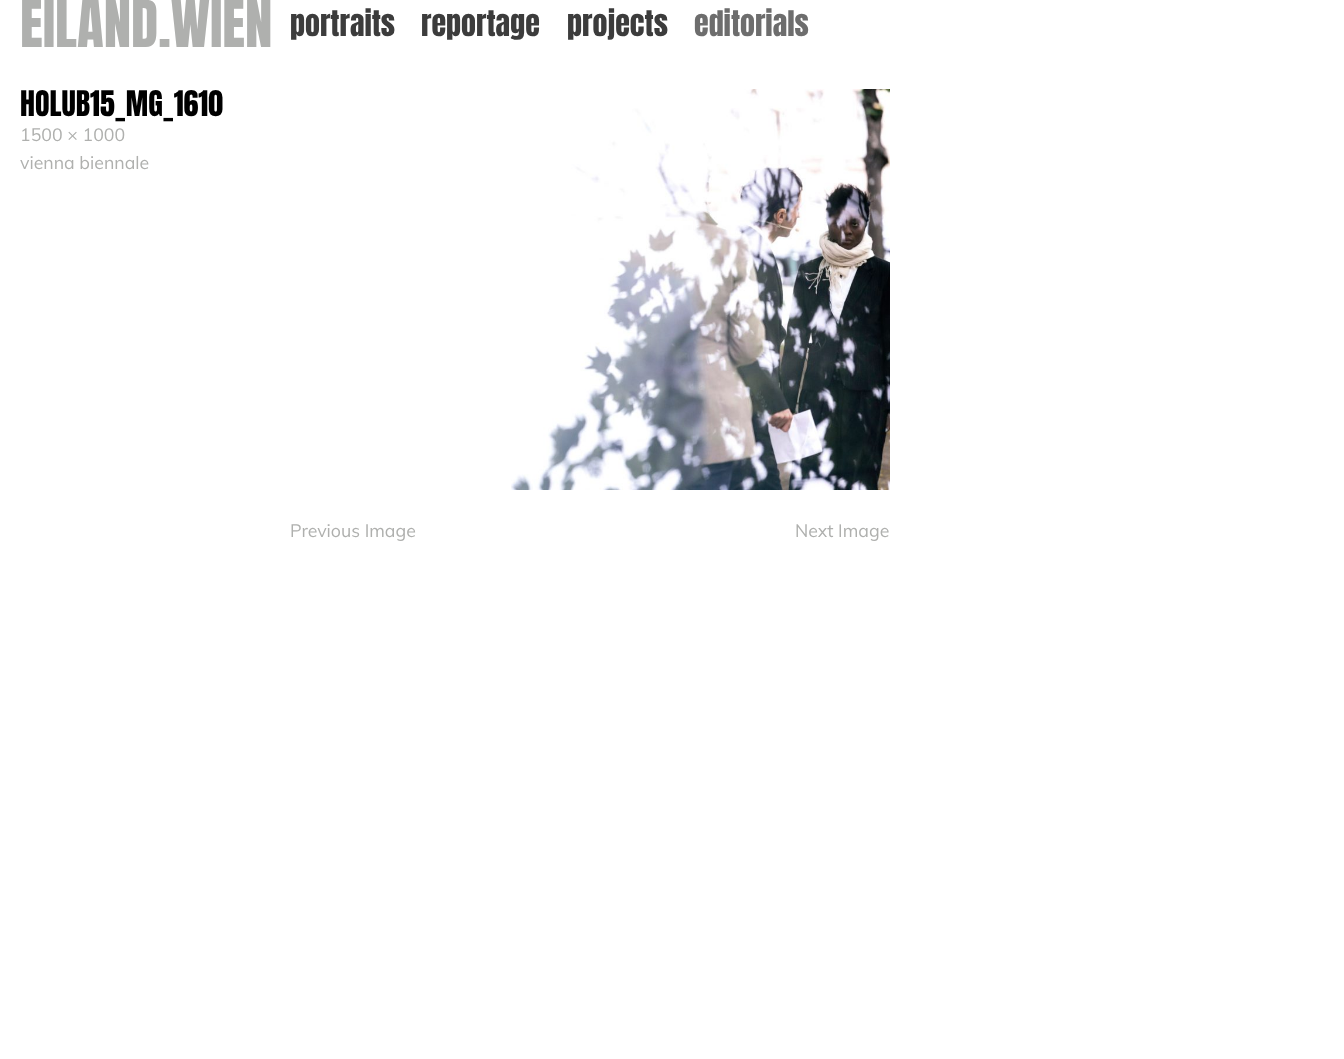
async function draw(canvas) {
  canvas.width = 1344;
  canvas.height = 1059;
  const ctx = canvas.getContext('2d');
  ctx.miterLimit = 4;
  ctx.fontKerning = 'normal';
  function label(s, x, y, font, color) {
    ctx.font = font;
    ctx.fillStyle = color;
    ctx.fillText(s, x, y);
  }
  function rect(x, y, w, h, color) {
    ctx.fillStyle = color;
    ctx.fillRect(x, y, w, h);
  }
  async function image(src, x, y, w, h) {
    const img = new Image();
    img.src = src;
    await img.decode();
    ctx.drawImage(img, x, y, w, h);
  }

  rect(0, 0, 1344, 1059, '#fff');
  label('EILAND.WIEN', 20, 47, '55px Anton', '#afb0ae');
  label('portraits', 290, 36, '30px Anton', '#3c3c3c');
  label('reportage', 421, 36, '30px Anton', '#3c3c3c');
  label('projects', 567, 36, '30px Anton', '#3c3c3c');
  label('editorials', 694, 36, '30px Anton', '#6d6d6d');
  label('HOLUB15_MG_1610', 20, 116, '30px Anton', '#000');
  label('1500 × 1000', 20, 141, '17.75px Muli', '#afb0ae');
  label('vienna biennale', 20, 169, '17.75px Muli', '#afb0ae');
  await image('assets/img1.png', 511, 89, 379, 401);
  label('Previous Image', 290, 537, '17.75px Muli', '#afb0ae');
  label('Next Image', 795, 537, '17.75px Muli', '#afb0ae');
}

draw(document.querySelector('canvas'));
